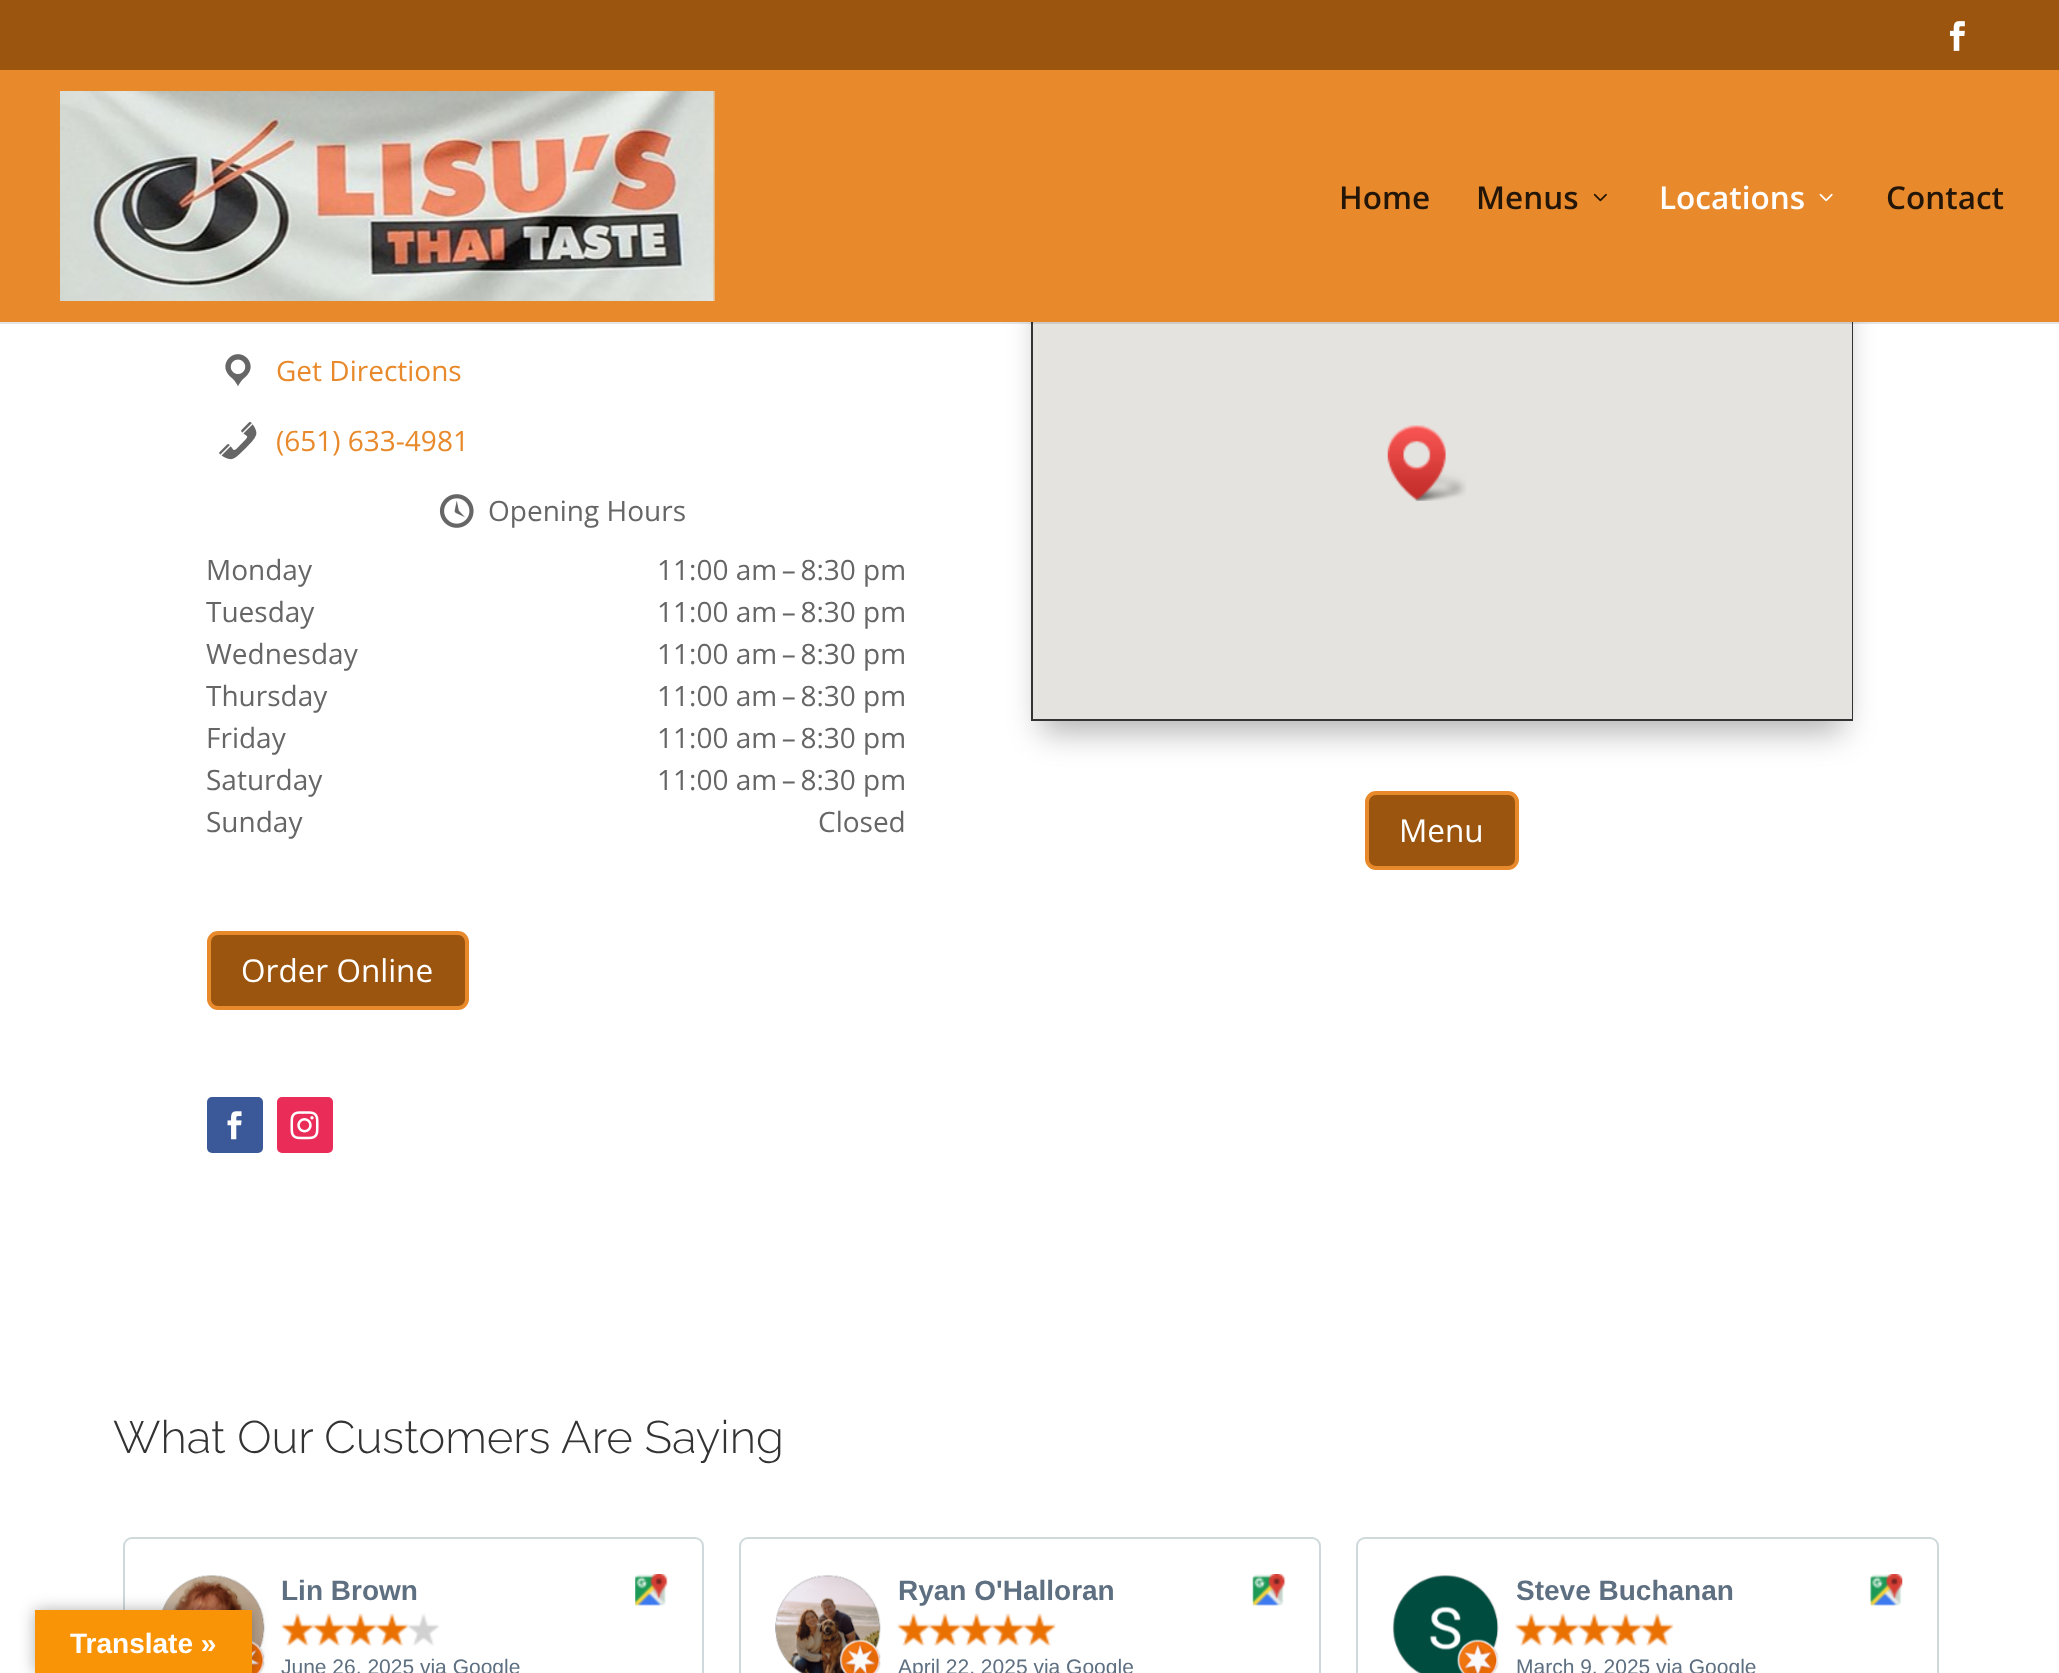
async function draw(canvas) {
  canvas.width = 2059;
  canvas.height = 1673;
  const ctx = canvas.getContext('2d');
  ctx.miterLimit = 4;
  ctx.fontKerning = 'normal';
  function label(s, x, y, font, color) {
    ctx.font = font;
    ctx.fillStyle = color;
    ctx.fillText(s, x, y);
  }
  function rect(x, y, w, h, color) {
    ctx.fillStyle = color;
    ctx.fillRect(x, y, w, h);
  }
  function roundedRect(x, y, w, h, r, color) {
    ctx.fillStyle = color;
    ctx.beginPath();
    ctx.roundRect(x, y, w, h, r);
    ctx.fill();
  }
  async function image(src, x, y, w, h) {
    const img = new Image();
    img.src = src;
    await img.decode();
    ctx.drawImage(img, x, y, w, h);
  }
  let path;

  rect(0, 0, 2059, 1673, '#fff');
  rect(0, 0, 2059, 70, '#9b550f');
  await image('assets/img1.png', 1949, 21, 16, 30);
  ctx.fillStyle = '#0000004d';
  ctx.filter = 'blur(16px)';
  ctx.beginPath();
  ctx.rect(1041, 259, 802, 473);
  ctx.fill();
  ctx.filter = 'none';
  ctx.strokeStyle = '#333';
  ctx.lineWidth = 2;
  ctx.strokeRect(1032, 229, 820, 491);
  rect(1033, 322, 819, 397, '#e5e3df');
  ctx.fillStyle = '#0000001a';
  path = new Path2D('M0 322V324H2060V72V322Z');
  ctx.fill(path);
  rect(0, 70, 2059, 252, '#e88a2c');
  await image('assets/img2.png', 60, 91, 655, 210);
  label('Home', 1339, 209, '600 31.5px Open Sans', '#231507');
  label('Menus', 1476, 209, '600 31.5px Open Sans', '#231507');
  await image('assets/img3.png', 1593, 193, 14, 9);
  label('Locations', 1659, 209, '600 31.5px Open Sans', '#fff');
  await image('assets/img4.png', 1819, 193, 14, 9);
  label('Contact', 1886, 209, '600 31.5px Open Sans', '#231507');
  await image('assets/img5.png', 225, 354, 26, 33);
  label('Get Directions', 276, 381, '28px Open Sans', '#e88a2c');
  await image('assets/img6.png', 219, 421, 38, 39);
  label('(651) 633-4981', 276, 451, '28px Open Sans', '#e88a2c');
  await image('assets/img7.png', 439, 494, 35, 34);
  label('Opening Hours', 488, 521, '28px Open Sans', '#666');
  label('Monday', 206, 580, '28px Open Sans', '#666');
  label('11:00 am – 8:30 pm', 657, 580, '28px Open Sans', '#666');
  label('Tuesday', 206, 622, '28px Open Sans', '#666');
  label('11:00 am – 8:30 pm', 657, 622, '28px Open Sans', '#666');
  label('Wednesday', 206, 664, '28px Open Sans', '#666');
  label('11:00 am – 8:30 pm', 657, 664, '28px Open Sans', '#666');
  label('Thursday', 206, 706, '28px Open Sans', '#666');
  label('11:00 am – 8:30 pm', 657, 706, '28px Open Sans', '#666');
  label('Friday', 206, 748, '28px Open Sans', '#666');
  label('11:00 am – 8:30 pm', 657, 748, '28px Open Sans', '#666');
  label('Saturday', 206, 790, '28px Open Sans', '#666');
  label('11:00 am – 8:30 pm', 657, 790, '28px Open Sans', '#666');
  label('Sunday', 206, 832, '28px Open Sans', '#666');
  label('Closed', 818, 832, '28px Open Sans', '#666');
  ctx.fillStyle = '#9b550f';
  ctx.beginPath();
  ctx.roundRect(209, 933, 258, 75, 9);
  ctx.fill();
  ctx.strokeStyle = '#e88a2c';
  ctx.lineWidth = 4;
  ctx.stroke();
  label('Order Online', 241, 982, '31.5px Open Sans', '#fff');
  roundedRect(207, 1097, 56, 56, 5, '#3b5998');
  await image('assets/img8.png', 227, 1111, 15, 29);
  roundedRect(277, 1097, 56, 56, 5, '#ea2c59');
  await image('assets/img9.png', 290, 1111, 29, 29);
  await image('assets/img10.png', 1387, 425, 79, 76);
  ctx.fillStyle = '#9b550f';
  ctx.beginPath();
  ctx.roundRect(1367, 793, 150, 75, 9);
  ctx.fill();
  ctx.stroke();
  label('Menu', 1399, 842, '31.5px Open Sans', '#fff');
  label('What Our Customers Are Saying', 113, 1453, '300 45.5px Raleway', '#333');
  ctx.beginPath();
  ctx.roundRect(124, 1538, 579, 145, 8);
  ctx.strokeStyle = '#cfd9db';
  ctx.lineWidth = 2;
  ctx.stroke();
  await image('assets/img11.png', 163, 1576, 100, 73);
  await image('assets/img12.png', 162, 1575, 103, 98);
  label('Lin Brown', 281, 1600, 'bold 28px Liberation Sans', '#5d6f80');
  await image('assets/img13.png', 635, 1574, 33, 32);
  await image('assets/img14.png', 281, 1613, 158, 33);
  label('June 26, 2025 via Google', 281, 1674, '21px Liberation Sans', '#5d6f80');
  ctx.beginPath();
  ctx.roundRect(740, 1538, 580, 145, 8);
  ctx.stroke();
  await image('assets/img15.png', 776, 1576, 103, 97);
  await image('assets/img16.png', 775, 1575, 106, 98);
  label('Ryan O\'Halloran', 898, 1600, 'bold 28px Liberation Sans', '#5d6f80');
  await image('assets/img17.png', 1252, 1574, 34, 32);
  await image('assets/img18.png', 897, 1613, 159, 33);
  label('April 22, 2025 via Google', 898, 1674, '21px Liberation Sans', '#5d6f80');
  ctx.beginPath();
  ctx.roundRect(1357, 1538, 581, 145, 8);
  ctx.stroke();
  await image('assets/img19.png', 1394, 1576, 103, 97);
  await image('assets/img20.png', 1392, 1575, 107, 98);
  label('Steve Buchanan', 1516, 1600, 'bold 28px Liberation Sans', '#5d6f80');
  await image('assets/img21.png', 1870, 1574, 33, 32);
  await image('assets/img22.png', 1515, 1613, 159, 33);
  label('March 9, 2025 via Google', 1516, 1674, '21px Liberation Sans', '#5d6f80');
  ctx.fillStyle = '#0000004d';
  ctx.filter = 'blur(8px)';
  ctx.beginPath();
  ctx.rect(35, 1610, 217, 63);
  ctx.fill();
  ctx.filter = 'none';
  rect(35, 1610, 217, 63, '#f89406');
  label('Translate »', 70, 1653, 'bold 28px Liberation Sans', '#fff');
}

draw(document.querySelector('canvas'));
